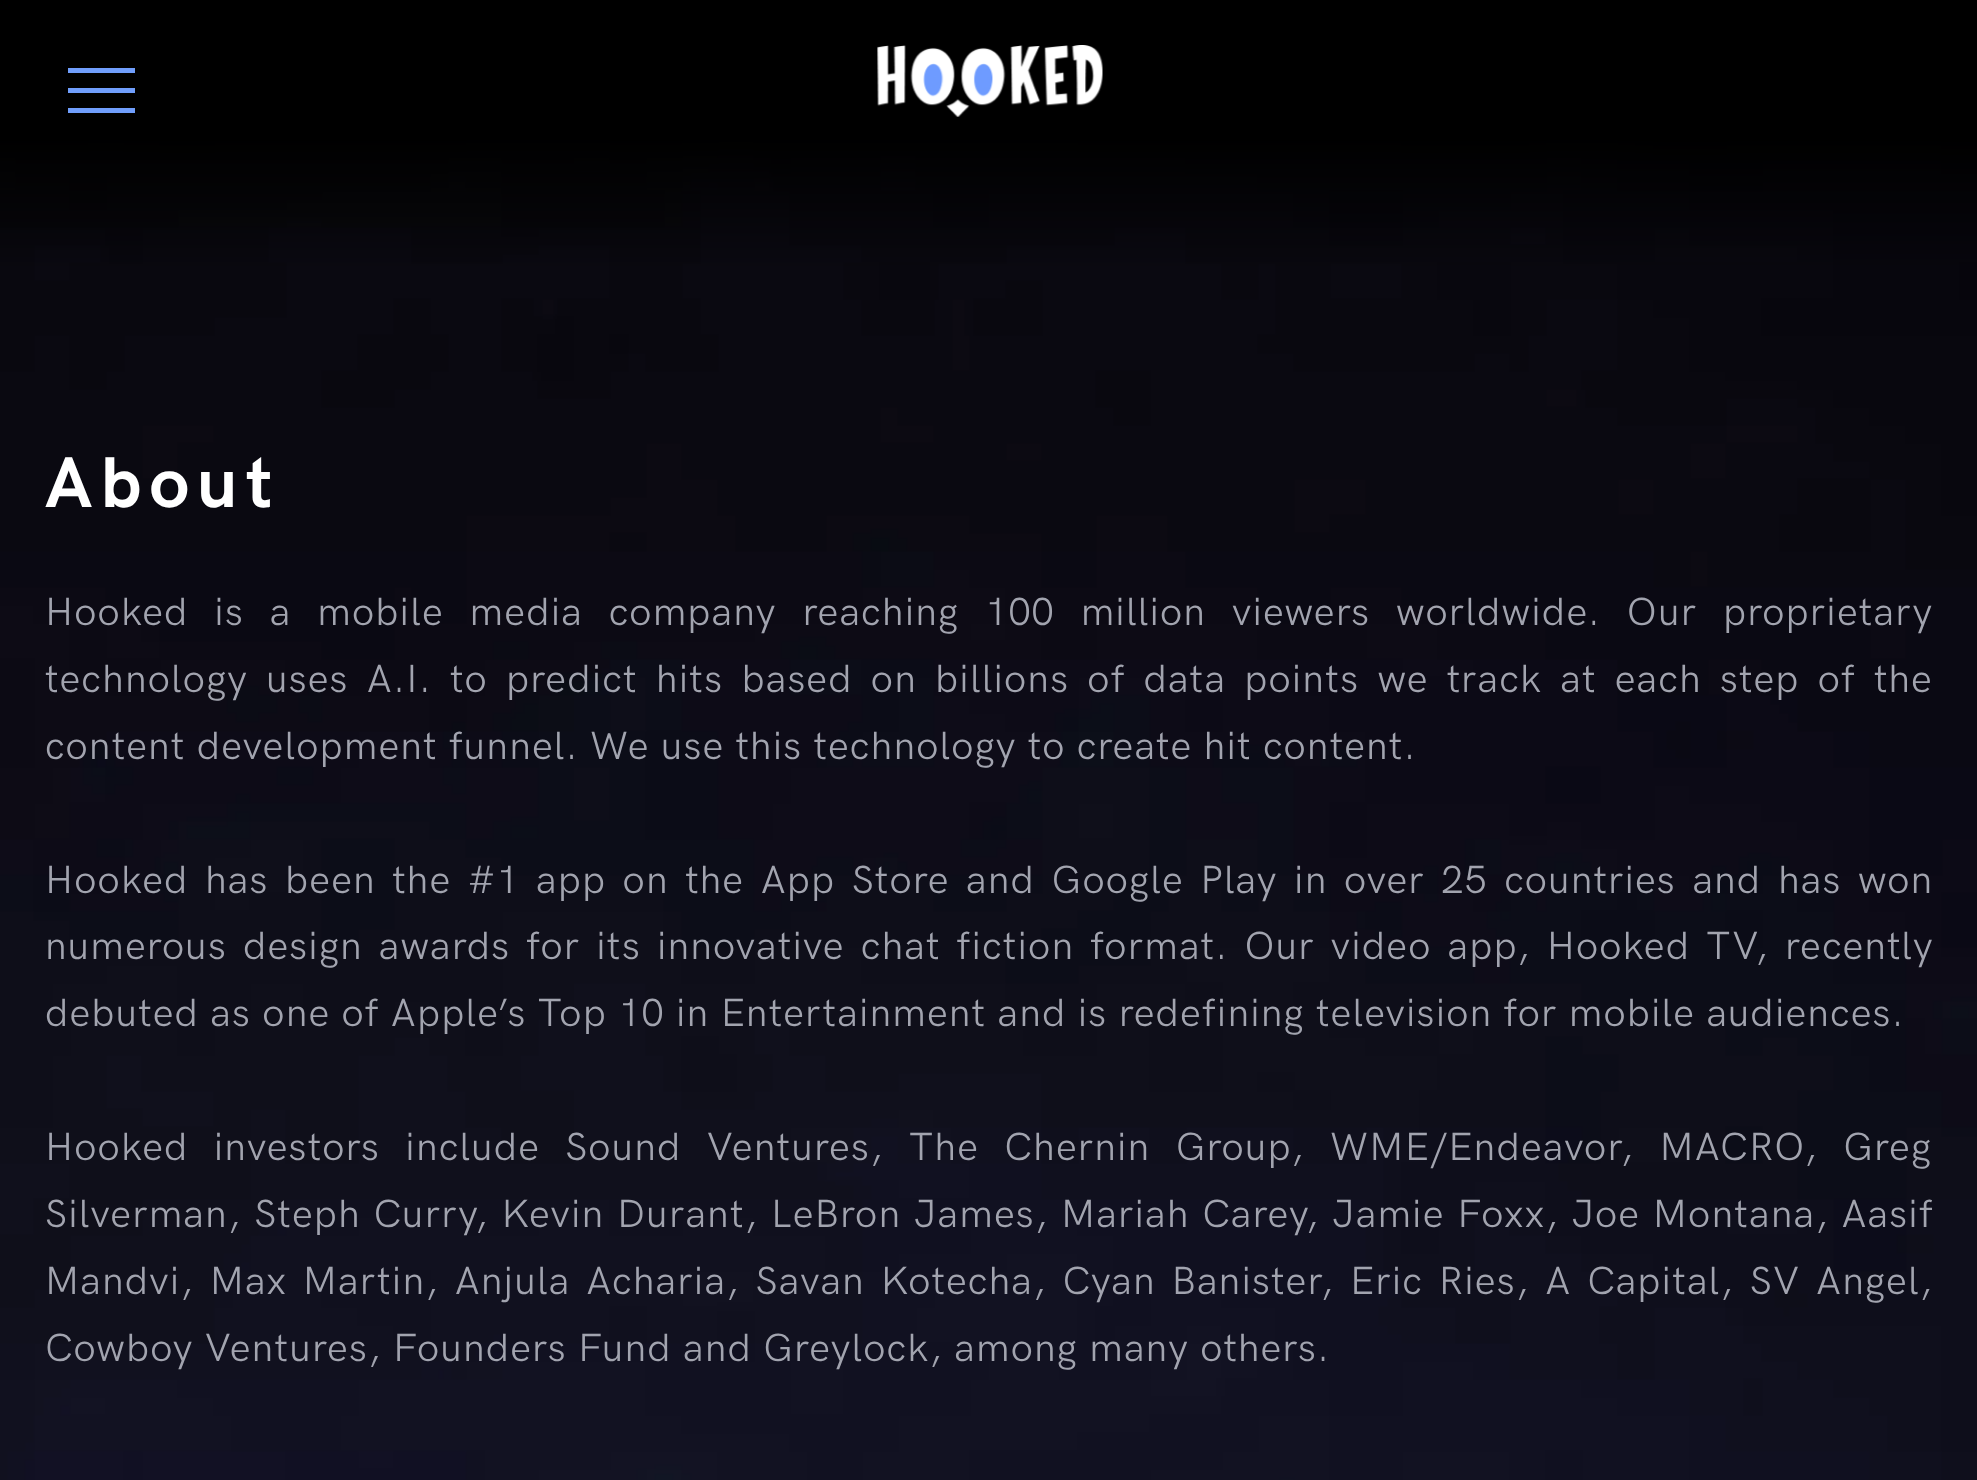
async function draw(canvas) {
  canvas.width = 1977;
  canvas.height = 1480;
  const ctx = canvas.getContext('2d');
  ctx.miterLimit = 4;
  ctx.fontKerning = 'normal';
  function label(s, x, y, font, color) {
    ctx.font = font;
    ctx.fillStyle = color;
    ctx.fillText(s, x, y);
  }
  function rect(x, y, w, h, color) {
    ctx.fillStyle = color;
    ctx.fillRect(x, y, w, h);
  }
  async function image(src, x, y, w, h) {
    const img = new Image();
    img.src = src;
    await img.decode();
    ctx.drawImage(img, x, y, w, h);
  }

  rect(0, 0, 1977, 1480, '#fff');
  await image('assets/img1.png', 0, 0, 1977, 1480);
  rect(68, 68, 67, 5, '#709efc');
  rect(68, 88, 67, 5, '#709efc');
  rect(68, 108, 67, 5, '#709efc');
  await image('assets/img2.png', 877, 45, 226, 72);
  ctx.letterSpacing = '8px';
  label('About', 45, 507, 'bold 72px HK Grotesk', '#fff');
  ctx.letterSpacing = '1.18px';
  ctx.wordSpacing = '14.6px';
  label('Hooked is a mobile media company reaching 100 million viewers worldwide. Our proprietary', 45, 625, '39.4px HK Grotesk', '#a2a4af');
  ctx.wordSpacing = '6.9px';
  label('technology uses A.I. to predict hits based on billions of data points we track at each step of the', 45, 692, '39.4px HK Grotesk', '#a2a4af');
  ctx.wordSpacing = '0px';
  label('content development funnel. We use this technology to create hit content.', 45, 759, '39.4px HK Grotesk', '#a2a4af');
  ctx.wordSpacing = '5.25px';
  label('Hooked has been the #1 app on the App Store and Google Play in over 25 countries and has won', 45, 893, '39.4px HK Grotesk', '#a2a4af');
  ctx.wordSpacing = '4.75px';
  label('numerous design awards for its innovative chat fiction format. Our video app, Hooked TV, recently', 45, 959, '39.4px HK Grotesk', '#a2a4af');
  ctx.wordSpacing = '0px';
  label('debuted as one of Apple’s Top 10 in Entertainment and is redefining television for mobile audiences.', 45, 1026, '39.4px HK Grotesk', '#a2a4af');
  ctx.wordSpacing = '14px';
  label('Hooked investors include Sound Ventures, The Chernin Group, WME/Endeavor, MACRO, Greg', 45, 1160, '39.4px HK Grotesk', '#a2a4af');
  ctx.wordSpacing = '1.4px';
  label('Silverman, Steph Curry, Kevin Durant, LeBron James, Mariah Carey, Jamie Foxx, Joe Montana, Aasif', 45, 1227, '39.4px HK Grotesk', '#a2a4af');
  ctx.wordSpacing = '4.5px';
  label('Mandvi, Max Martin, Anjula Acharia, Savan Kotecha, Cyan Banister, Eric Ries, A Capital, SV Angel,', 45, 1294, '39.4px HK Grotesk', '#a2a4af');
  ctx.wordSpacing = '0px';
  label('Cowboy Ventures, Founders Fund and Greylock, among many others.', 45, 1361, '39.4px HK Grotesk', '#a2a4af');
}

draw(document.querySelector('canvas'));
